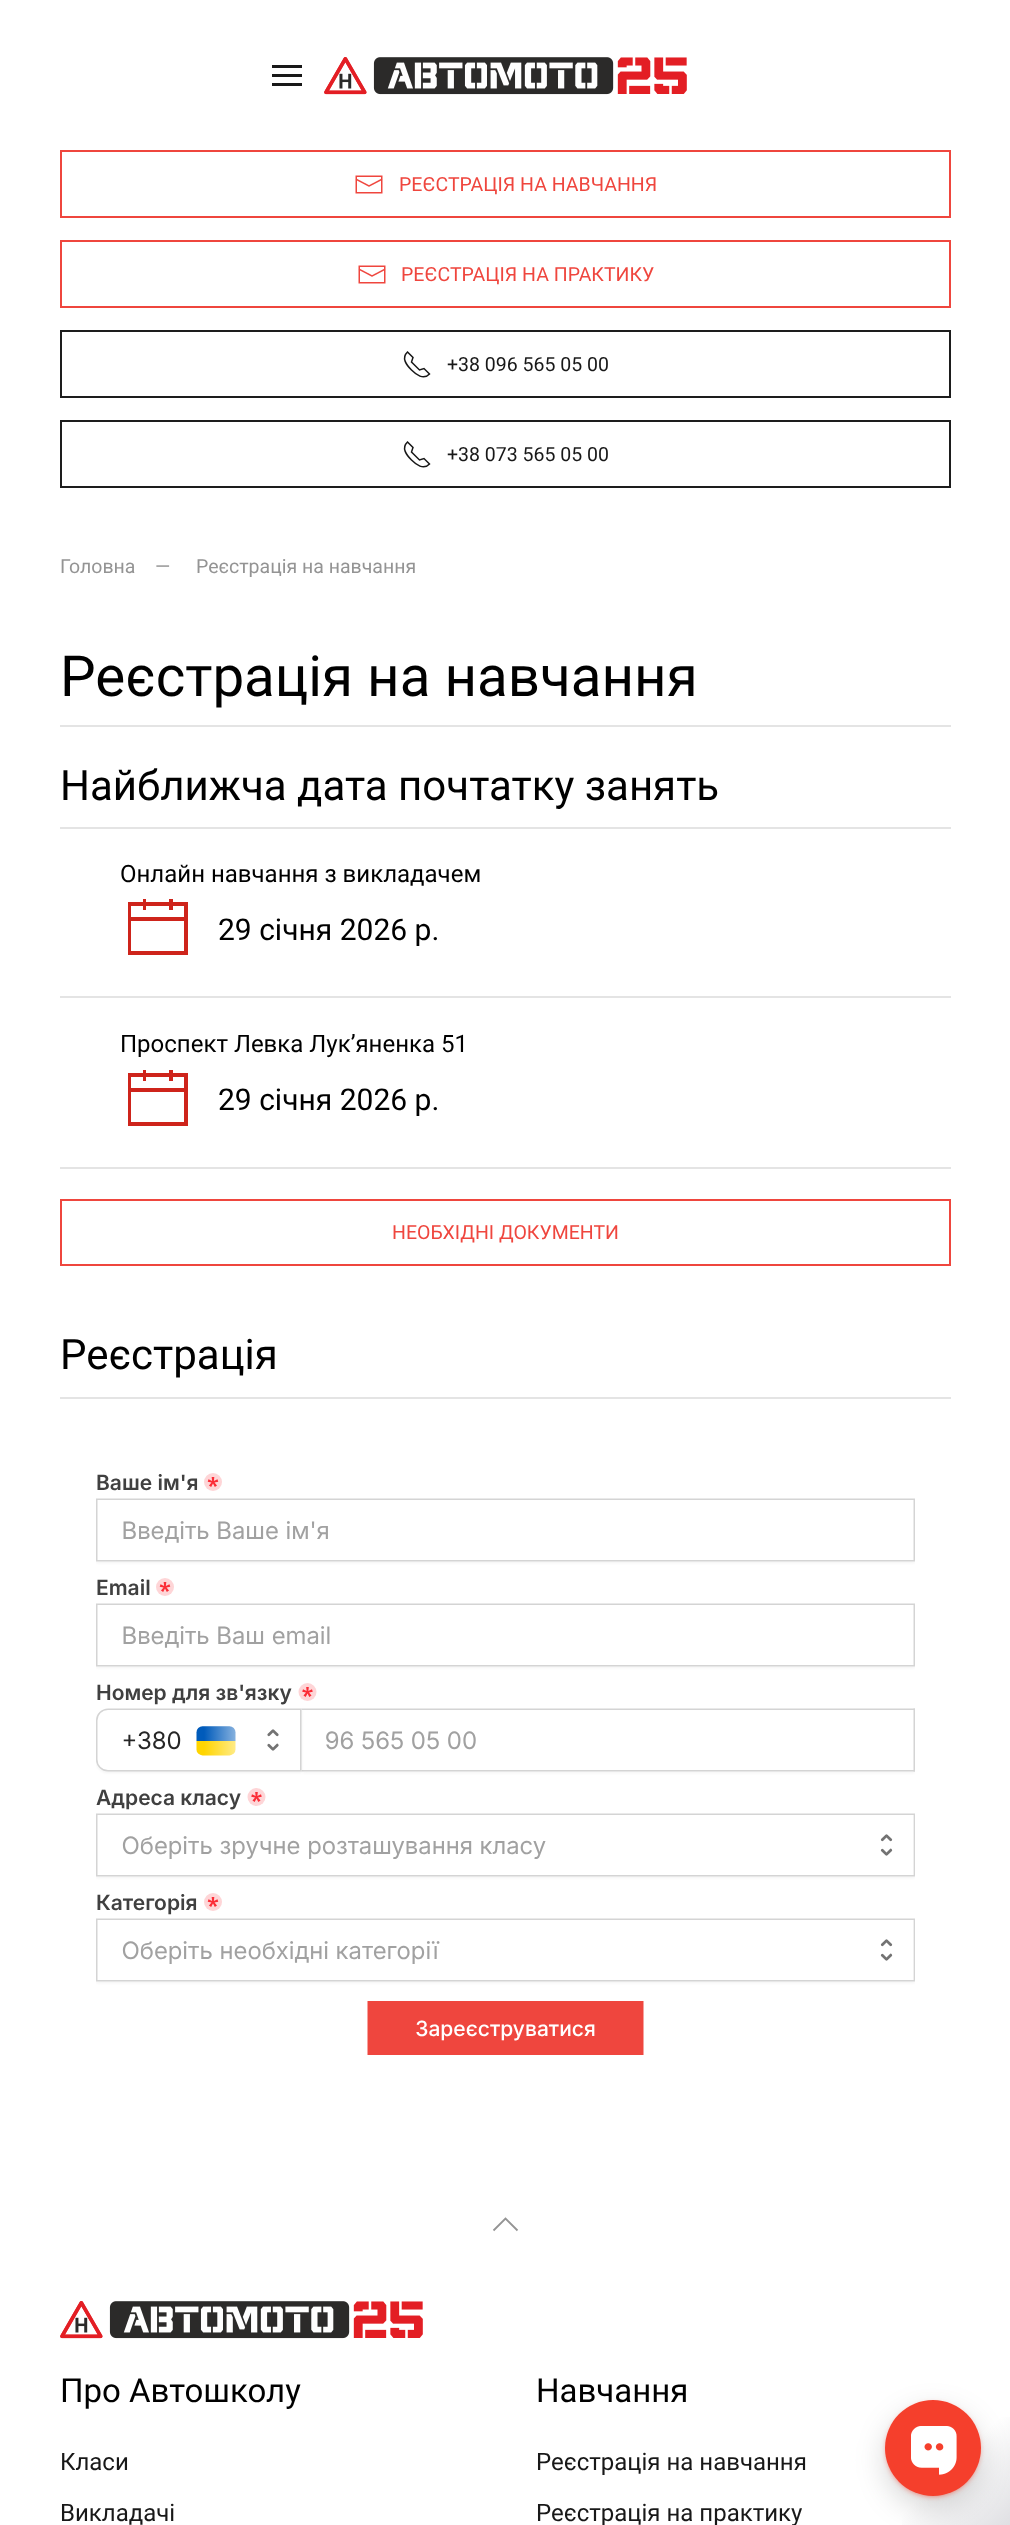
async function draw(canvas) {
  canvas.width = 1010;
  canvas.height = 2525;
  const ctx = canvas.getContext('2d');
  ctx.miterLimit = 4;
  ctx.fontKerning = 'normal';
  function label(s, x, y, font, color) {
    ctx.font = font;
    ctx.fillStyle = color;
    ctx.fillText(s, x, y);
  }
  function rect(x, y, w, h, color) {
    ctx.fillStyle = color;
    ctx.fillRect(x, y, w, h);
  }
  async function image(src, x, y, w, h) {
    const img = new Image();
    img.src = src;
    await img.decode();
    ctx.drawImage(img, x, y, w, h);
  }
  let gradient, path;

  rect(0, 0, 1010, 2525, '#fff');
  rect(272, 65, 30, 3, '#181818');
  rect(272, 74, 30, 3, '#181818');
  rect(272, 83, 30, 3, '#181818');
  await image('assets/img1.png', 324, 57, 363, 38);
  ctx.strokeStyle = '#ef463e';
  ctx.lineWidth = 2;
  ctx.strokeRect(61, 151, 889, 66);
  await image('assets/img2.png', 355, 175, 28, 19);
  label('РЕЄСТРАЦІЯ НА НАВЧАННЯ', 399, 191, '19.5px Roboto', '#ef463e');
  ctx.strokeRect(61, 241, 889, 66);
  await image('assets/img2.png', 358, 265, 28, 19);
  label('РЕЄСТРАЦІЯ НА ПРАКТИКУ', 401, 281, '19.5px Roboto', '#ef463e');
  ctx.strokeStyle = '#1d1d1d';
  ctx.strokeRect(61, 331, 889, 66);
  path = new Path2D('M411.5 370C416 374.5 423.5 380.5 429.5 374L424 368.5L419.5 370L411.5 362L413 357.5L407.5 352C401 358 406.5 365 411.5 370');
  ctx.strokeStyle = '#181818';
  ctx.lineWidth = 1.5;
  ctx.stroke(path);
  label('+38 096 565 05 00', 447, 371, '19.5px Roboto', '#181818');
  ctx.strokeStyle = '#1d1d1d';
  ctx.lineWidth = 2;
  ctx.strokeRect(61, 421, 889, 66);
  path = new Path2D('M411.5 460C416 464.5 423.5 470.5 429.5 464L424 458.5L419.5 460L411.5 452L413 447.5L407.5 442C401 448 406.5 455 411.5 460');
  ctx.strokeStyle = '#181818';
  ctx.lineWidth = 1.5;
  ctx.stroke(path);
  label('+38 073 565 05 00', 447, 461, '19.5px Roboto', '#181818');
  label('Головна', 60, 573, '19.5px Roboto', '#949494');
  label('—', 155, 573, '19.5px Roboto', '#949494');
  label('Реєстрація на навчання', 196, 573, '19.5px Roboto', '#949494');
  rect(60, 725, 891, 2, '#e4e4e4');
  label('Реєстрація на навчання', 60, 696, '56.5px Roboto', '#000');
  rect(60, 827, 891, 2, '#e4e4e4');
  label('Найближча дата почтатку занять', 60, 800, '42px Roboto', '#000');
  label('Онлайн навчання з викладачем', 120, 882, '24px Roboto', '#000');
  ctx.fillStyle = '#ce241b';
  path = new Path2D('M128 902V955H188V902ZM184 951H131V921H184ZM184 917H131V906H184Z');
  ctx.fill(path);
  rect(143, 899, 3, 11, '#ce241b');
  rect(169, 899, 4, 11, '#ce241b');
  label('29 січня 2026 р.', 218, 940, '30px Roboto', '#000');
  rect(60, 996, 891, 2, '#e4e4e4');
  label('Проспект Левка Лук’яненка 51', 120, 1052, '24px Roboto', '#000');
  ctx.fillStyle = '#ce241b';
  path = new Path2D('M128 1073V1126H188V1073ZM184 1122H131V1092H184ZM184 1088H131V1077H184Z');
  ctx.fill(path);
  rect(143, 1070, 3, 11, '#ce241b');
  rect(169, 1070, 4, 11, '#ce241b');
  label('29 січня 2026 р.', 218, 1110, '30px Roboto', '#000');
  rect(60, 1167, 891, 2, '#e4e4e4');
  ctx.strokeStyle = '#ef463e';
  ctx.lineWidth = 2;
  ctx.strokeRect(61, 1200, 889, 65);
  label('НЕОБХІДНІ ДОКУМЕНТИ', 392, 1239, '19.5px Roboto', '#ef463e');
  rect(60, 1397, 891, 2, '#e4e4e4');
  label('Реєстрація', 60, 1369, '42px Roboto', '#000');
  await image('assets/img3.png', 96, 1473, 819, 582);
  path = new Path2D('M493.5 2230.5L505.5 2218.5L517.5 2230.5');
  ctx.strokeStyle = '#949494';
  ctx.lineWidth = 1.8;
  ctx.stroke(path);
  await image('assets/img1.png', 60, 2301, 363, 38);
  label('Про Автошколу', 60, 2402, '33px Roboto', '#000');
  label('Класи', 60, 2470, '24px Roboto', '#181818');
  label('Викладачі', 60, 2521, '24px Roboto', '#181818');
  label('Навчання', 536, 2402, '33px Roboto', '#000');
  label('Реєстрація на навчання', 536, 2470, '24px Roboto', '#181818');
  label('Реєстрація на практику', 536, 2521, '24px Roboto', '#181818');
  gradient = ctx.createLinearGradient(861, 2376, 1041, 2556);
  gradient.addColorStop(0.5, '#fff');
  gradient.addColorStop(1, '#cfcfd4');
  ctx.fillStyle = gradient;
  ctx.fillRect(902, 2417, 108, 108);
  ctx.fillStyle = '#00000029';
  ctx.filter = 'blur(15px)';
  ctx.beginPath();
  ctx.roundRect(885, 2412, 96, 96, 48);
  ctx.fill();
  ctx.filter = 'none';
  ctx.fillStyle = '#f53f2c';
  ctx.filter = 'blur(3px)';
  ctx.beginPath();
  ctx.roundRect(888, 2405, 90, 90, 45);
  ctx.fill();
  ctx.filter = 'none';
  ctx.beginPath();
  ctx.arc(933, 2448, 48, 0, 2 * Math.PI);
  ctx.fill();
  await image('assets/img4.png', 911, 2426, 46, 49);
}

draw(document.querySelector('canvas'));
